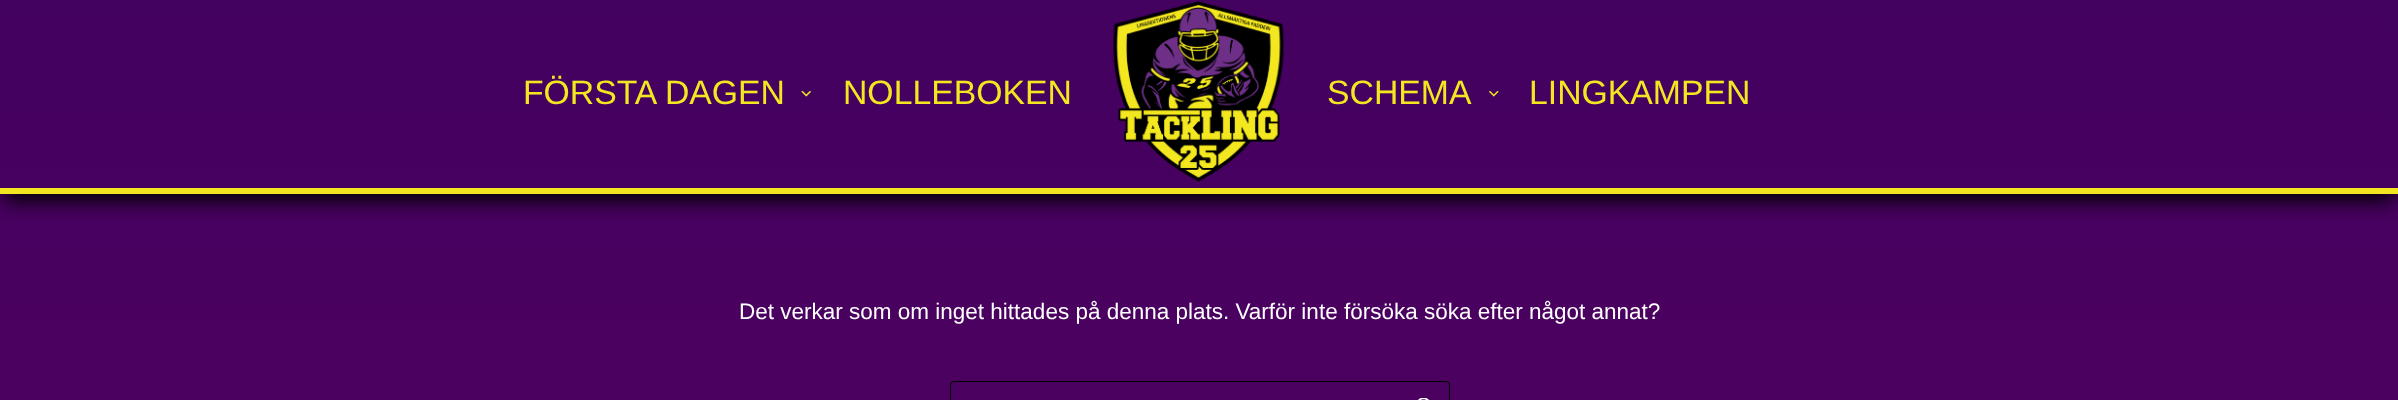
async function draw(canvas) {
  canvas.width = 2398;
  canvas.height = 400;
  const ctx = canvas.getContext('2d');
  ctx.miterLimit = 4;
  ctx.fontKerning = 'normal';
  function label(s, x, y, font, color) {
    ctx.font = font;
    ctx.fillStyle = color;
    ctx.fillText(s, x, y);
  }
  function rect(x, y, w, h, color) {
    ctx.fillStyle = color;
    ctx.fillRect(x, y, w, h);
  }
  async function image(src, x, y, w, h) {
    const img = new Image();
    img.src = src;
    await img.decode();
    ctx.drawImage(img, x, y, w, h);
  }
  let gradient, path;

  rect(0, 0, 2398, 400, '#fff');
  gradient = ctx.createLinearGradient(1199, 0, 1199, 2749);
  gradient.addColorStop(0, '#430160');
  gradient.addColorStop(0.46, '#5d005e');
  gradient.addColorStop(1, '#89008b');
  ctx.fillStyle = gradient;
  ctx.fillRect(0, 0, 2398, 400);
  ctx.save();
  ctx.beginPath();
  ctx.rect(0, 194, 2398, 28);
  ctx.clip();
  ctx.fillStyle = '#000';
  ctx.filter = 'blur(10px)';
  ctx.beginPath();
  ctx.rect(5, 18, 2389, 183);
  ctx.fill();
  ctx.filter = 'none';
  ctx.restore();
  rect(0, 188, 2398, 6, '#f2e720');
  label('FÖRSTA DAGEN', 523, 104, '33.75px Liberation Sans', '#f2e720');
  await image('assets/img1.png', 801, 91, 10, 6);
  label('NOLLEBOKEN', 843, 104, '33.75px Liberation Sans', '#f2e720');
  await image('assets/img2.png', 1113, 1, 171, 181);
  label('SCHEMA', 1327, 104, '33.75px Liberation Sans', '#f2e720');
  await image('assets/img3.png', 1489, 91, 10, 6);
  label('LINGKAMPEN', 1529, 104, '33.75px Liberation Sans', '#f2e720');
  label('Det verkar som om inget hittades på denna plats. Varför inte försöka söka efter något annat?', 739, 319, '22.5px Liberation Sans', '#fff');
  ctx.fillStyle = '#000';
  path = new Path2D('M954 381H1400V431H954C952 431 950 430 950 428V385C950 383 952 381 954 381ZM954 382H1400V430H954C952 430 951 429 951 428V385C951 384 952 382 954 382Z');
  ctx.fill(path, 'evenodd');
  path = new Path2D('M1400 381H1446C1448 381 1450 383 1450 385V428C1450 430 1448 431 1446 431H1400ZM1400 382H1446C1448 382 1449 384 1449 385V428C1449 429 1448 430 1446 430H1400Z');
  ctx.fill(path, 'evenodd');
  await image('assets/img4.png', 1418, 398, 11, 2);
}

draw(document.querySelector('canvas'));
